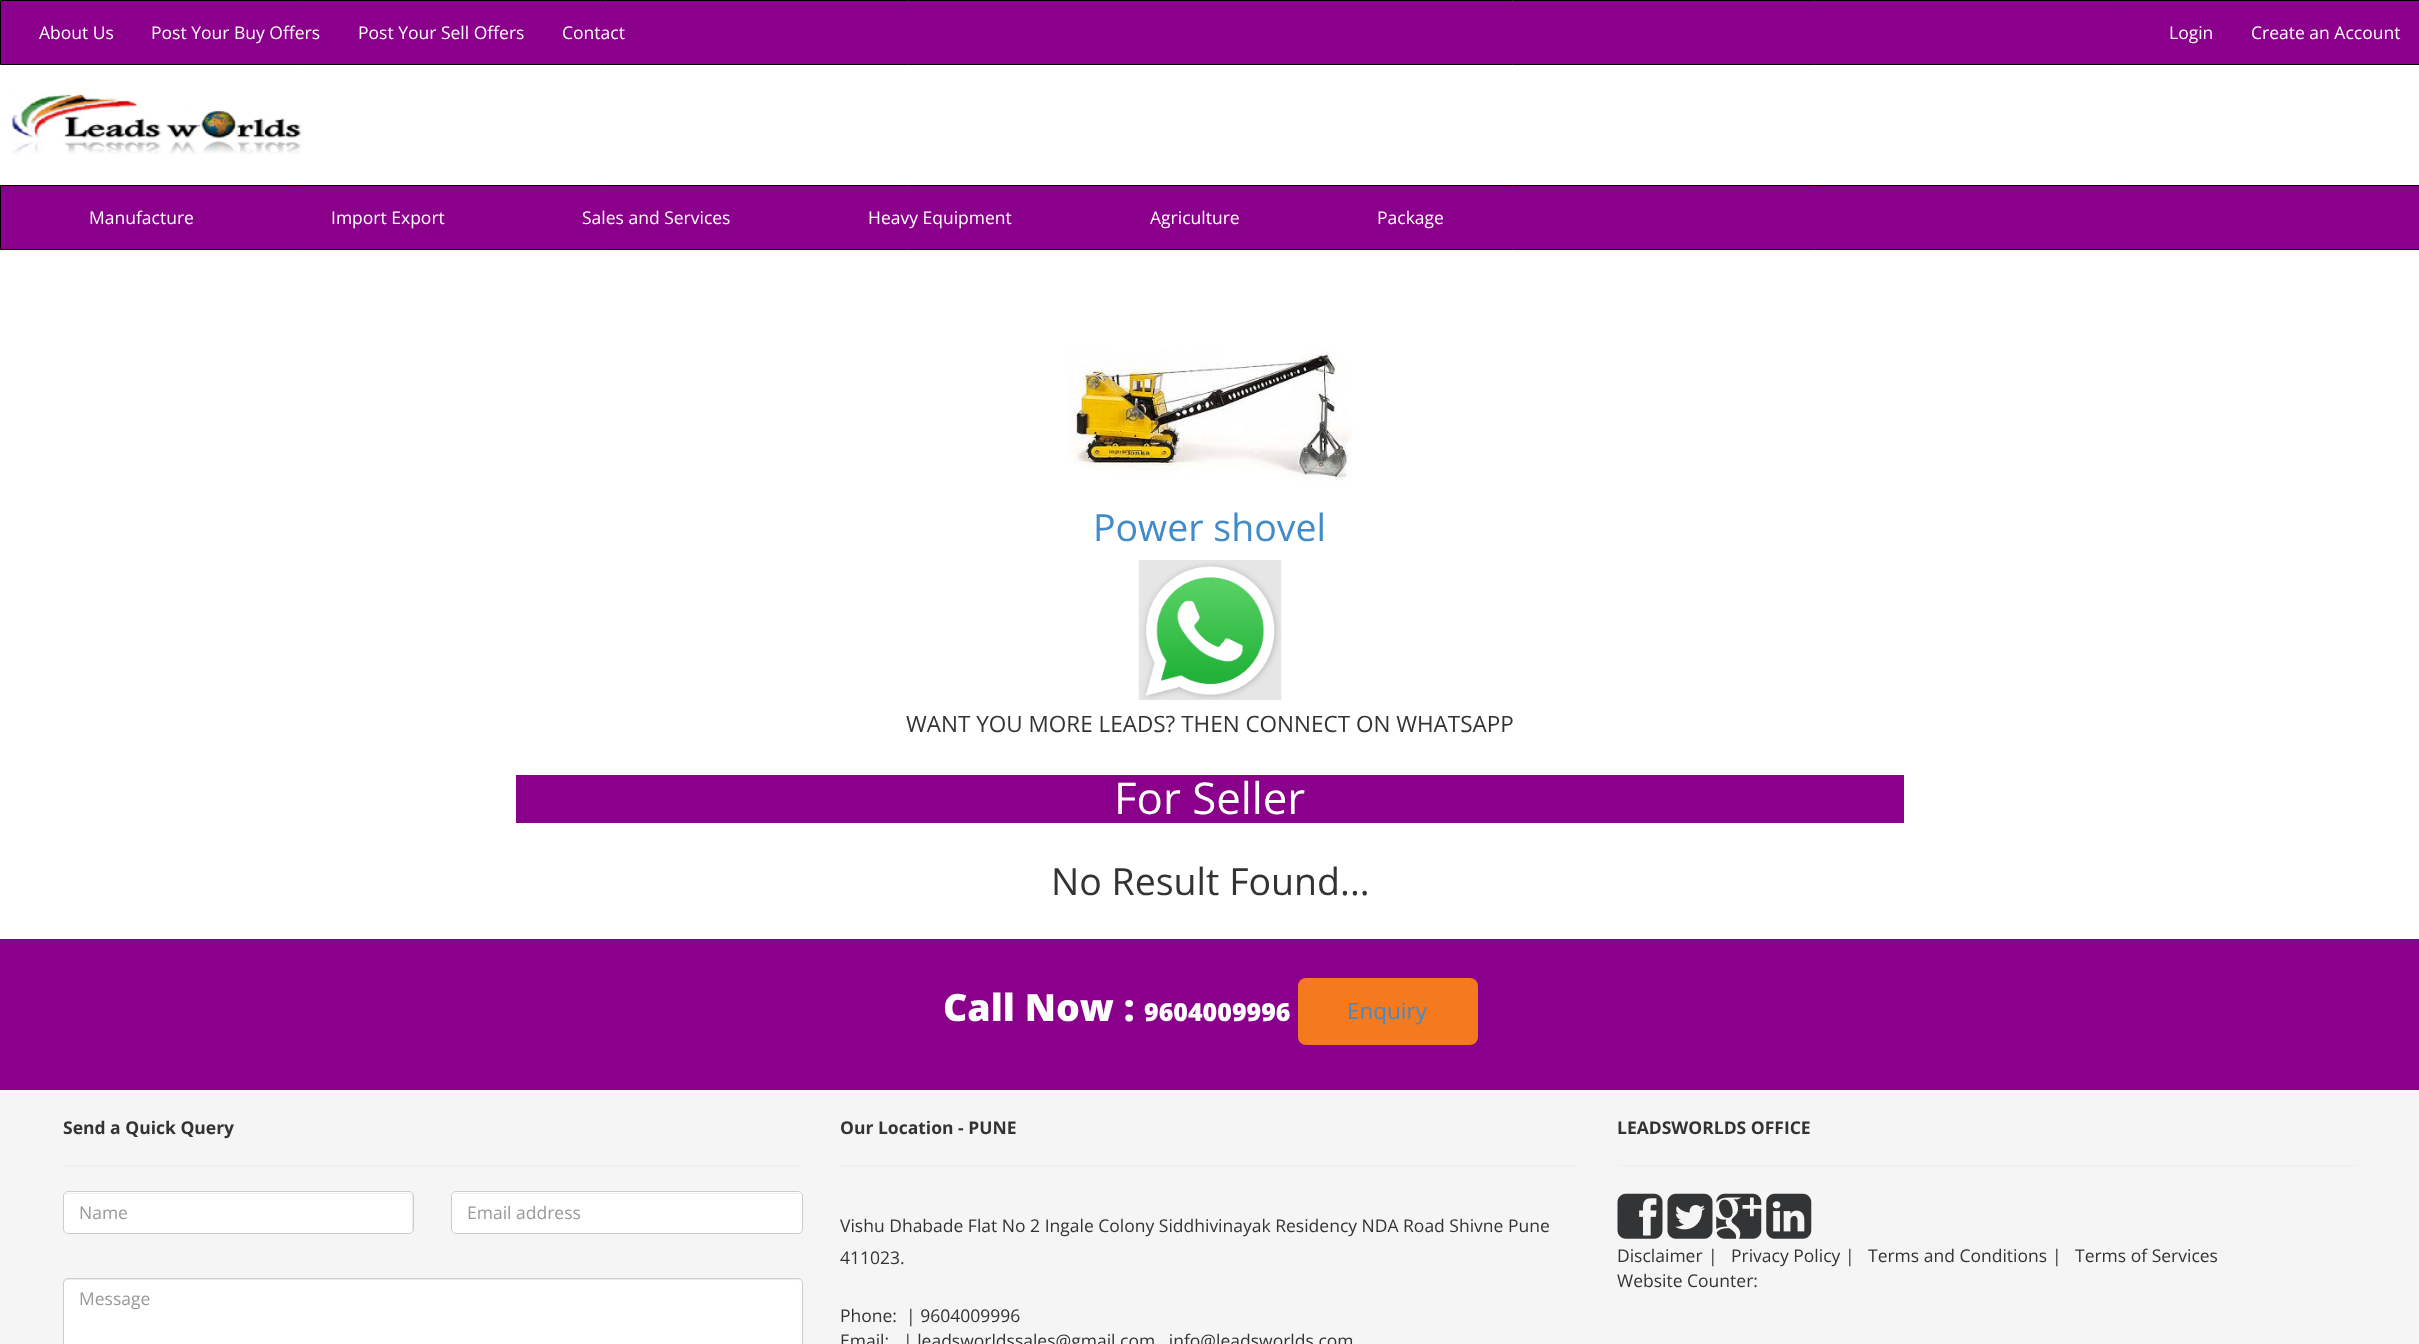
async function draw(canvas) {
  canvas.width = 2419;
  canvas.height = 1344;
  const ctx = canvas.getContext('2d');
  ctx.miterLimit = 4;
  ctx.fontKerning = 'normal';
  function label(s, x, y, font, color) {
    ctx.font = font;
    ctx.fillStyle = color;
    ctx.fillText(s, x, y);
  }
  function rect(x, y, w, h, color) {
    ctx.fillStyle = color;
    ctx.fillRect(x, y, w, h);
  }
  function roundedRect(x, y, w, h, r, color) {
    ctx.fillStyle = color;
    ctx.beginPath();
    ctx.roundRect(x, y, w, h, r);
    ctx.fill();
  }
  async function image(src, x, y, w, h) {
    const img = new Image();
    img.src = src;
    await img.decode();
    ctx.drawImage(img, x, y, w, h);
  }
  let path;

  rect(0, 0, 2419, 1344, '#fff');
  ctx.fillStyle = '#8b008b';
  ctx.beginPath();
  ctx.rect(0.5, 0.5, 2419, 64);
  ctx.fill();
  ctx.strokeStyle = '#000';
  ctx.stroke();
  label('About Us', 39, 39, '17.5px Open Sans', '#fff');
  label('Post Your Buy Offers', 151, 39, '17.5px Open Sans', '#fff');
  label('Post Your Sell Offers', 358, 39, '17.5px Open Sans', '#fff');
  label('Contact', 562, 39, '17.5px Open Sans', '#fff');
  label('Login', 2169, 39, '17.5px Open Sans', '#fff');
  label('Create an Account', 2251, 39, '17.5px Open Sans', '#fff');
  await image('assets/img1.png', 10, 94, 293, 60);
  ctx.fillStyle = '#8b008b';
  ctx.beginPath();
  ctx.rect(0.5, 185.5, 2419, 64);
  ctx.fill();
  ctx.stroke();
  label('Manufacture', 89, 224, '17.5px Open Sans', '#fff');
  label('Import Export', 331, 224, '17.5px Open Sans', '#fff');
  label('Sales and Services', 582, 224, '17.5px Open Sans', '#fff');
  label('Heavy Equipment', 868, 224, '17.5px Open Sans', '#fff');
  label('Agriculture', 1150, 224, '17.5px Open Sans', '#fff');
  label('Package', 1377, 224, '17.5px Open Sans', '#fff');
  await image('assets/img2.png', 1067, 349, 286, 132);
  label('Power shovel', 1093, 541, '37.5px Open Sans', '#428bca');
  await image('assets/img3.png', 1138, 560, 144, 140);
  label('WANT YOU MORE LEADS? THEN CONNECT ON WHATSAPP', 906, 732, '22.5px Open Sans', '#333');
  rect(516, 775, 1388, 48, '#8b008b');
  label('For Seller', 1114, 814, '43.75px Open Sans', '#fff');
  label('No Result Found...', 1051, 895, '37.5px Open Sans', '#333');
  rect(0, 939, 2419, 151, '#8b008b');
  label('Call Now :', 943, 1021, '800 37.5px Open Sans', '#fff');
  label('9604009996', 1144, 1021, '800 25px Open Sans', '#fff');
  roundedRect(1298, 978, 180, 67, 8, '#f5791f');
  label('Enquiry', 1347, 1019, '22.5px Open Sans', '#428bca');
  rect(0, 1090, 2419, 254, '#f5f5f5');
  label('Send a Quick Query', 63, 1134, 'bold 17.5px Open Sans', '#333');
  rect(63, 1165, 740, 1, '#eee');
  roundedRect(63, 1191, 351, 43, 5, '#fff');
  ctx.fillStyle = '#ececec';
  path = new Path2D('M68 1194H409C411 1194 412 1195 412 1198V1232C412 1231 413 1230 413 1229V1197C413 1195 411 1193 409 1193H68C66 1193 64 1195 64 1197V1198C64 1195 65 1194 68 1194Z');
  ctx.fill(path);
  ctx.beginPath();
  ctx.roundRect(63.5, 1191.5, 350, 42, 4.5);
  ctx.strokeStyle = '#ccc';
  ctx.stroke();
  label('Name', 79, 1219, '17.5px Open Sans', '#999');
  roundedRect(451, 1191, 352, 43, 5, '#fff');
  ctx.fillStyle = '#ececec';
  path = new Path2D('M456 1194H798C800 1194 801 1195 801 1198V1197C801 1195 799 1193 797 1193H457C456 1193 455 1194 454 1194Z');
  ctx.fill(path);
  ctx.beginPath();
  ctx.roundRect(451.5, 1191.5, 351, 42, 4.5);
  ctx.stroke();
  label('Email address', 467, 1219, '17.5px Open Sans', '#999');
  roundedRect(63, 1278, 740, 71, 5, '#fff');
  ctx.fillStyle = '#ececec';
  path = new Path2D('M68 1280H798C800 1280 801 1282 801 1284C801 1281 800 1279 797 1279H68L65 1280L64 1281V1284C64 1282 65 1280 68 1280Z');
  ctx.fill(path);
  ctx.beginPath();
  ctx.roundRect(63.5, 1278.5, 739, 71, 4.5);
  ctx.stroke();
  label('Message', 79, 1305, '17.5px Open Sans', '#999');
  label('Our Location - PUNE', 840, 1134, 'bold 17.5px Open Sans', '#333');
  rect(840, 1165, 740, 1, '#eee');
  label('Vishu Dhabade Flat No 2 Ingale Colony Siddhivinayak Residency NDA Road Shivne Pune', 840, 1232, '17.5px Open Sans', '#333');
  label('411023.', 840, 1264, '17.5px Open Sans', '#333');
  label('Phone:', 840, 1322, '17.5px Open Sans', '#333');
  label('| 9604009996', 906, 1322, '17.5px Open Sans', '#333');
  label('Email:', 840, 1347, '17.5px Open Sans', '#333');
  label('| leadsworldssales@gmail.com , info@leadsworlds.com', 903, 1347, '17.5px Open Sans', '#333');
  label('LEADSWORLDS OFFICE', 1617, 1134, 'bold 17.5px Open Sans', '#333');
  rect(1618, 1165, 740, 1, '#eee');
  await image('assets/img4.png', 1617, 1193, 46, 46);
  await image('assets/img5.png', 1667, 1193, 46, 46);
  await image('assets/img6.png', 1716, 1193, 46, 46);
  await image('assets/img7.png', 1766, 1193, 46, 46);
  label('Disclaimer', 1617, 1262, '17.5px Open Sans', '#333');
  label('|', 1708, 1262, '17.5px Open Sans', '#333');
  label('Privacy Policy', 1731, 1262, '17.5px Open Sans', '#333');
  label('|', 1845, 1262, '17.5px Open Sans', '#333');
  label('Terms and Conditions', 1868, 1262, '17.5px Open Sans', '#333');
  label('|', 2052, 1262, '17.5px Open Sans', '#333');
  label('Terms of Services', 2075, 1262, '17.5px Open Sans', '#333');
  label('Website Counter:', 1617, 1287, '17.5px Open Sans', '#333');
}

draw(document.querySelector('canvas'));
